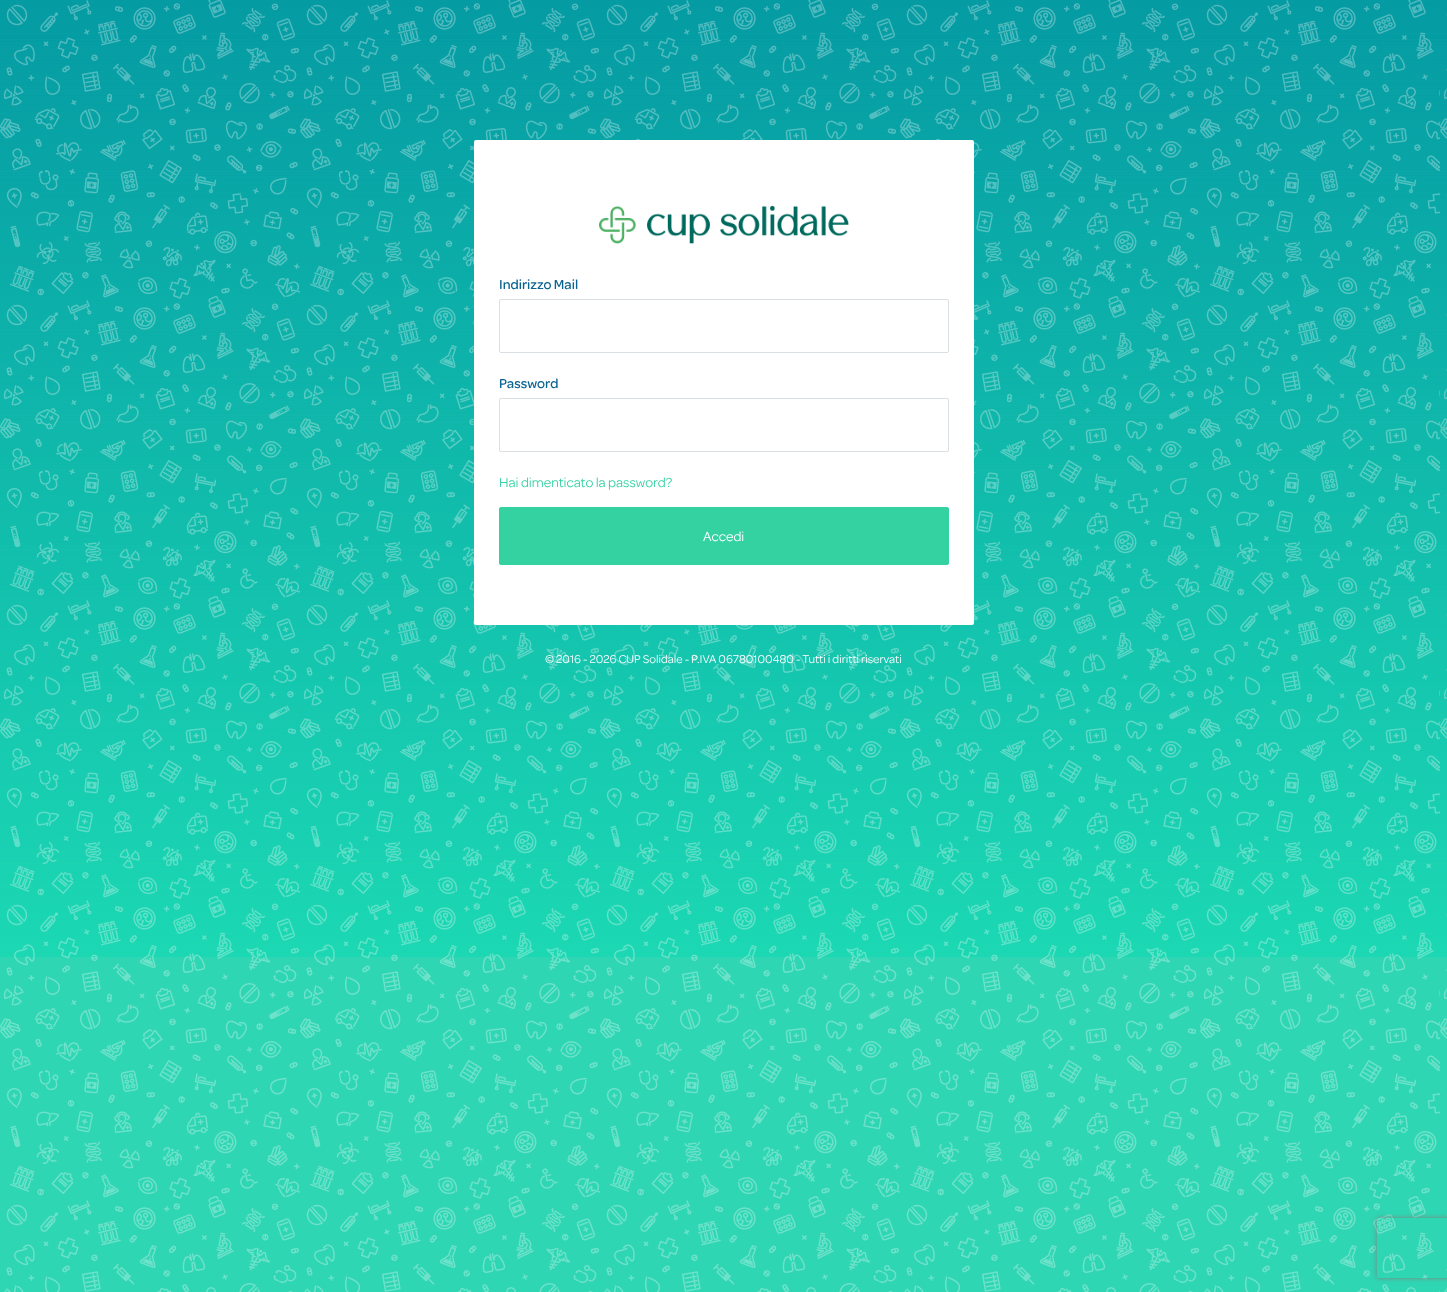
async function draw(canvas) {
  canvas.width = 1447;
  canvas.height = 1292;
  const ctx = canvas.getContext('2d');
  ctx.miterLimit = 4;
  ctx.fontKerning = 'normal';
  function label(s, x, y, font, color) {
    ctx.font = font;
    ctx.fillStyle = color;
    ctx.fillText(s, x, y);
  }
  function rect(x, y, w, h, color) {
    ctx.fillStyle = color;
    ctx.fillRect(x, y, w, h);
  }
  function roundedRect(x, y, w, h, r, color) {
    ctx.fillStyle = color;
    ctx.beginPath();
    ctx.roundRect(x, y, w, h, r);
    ctx.fill();
  }
  async function image(src, x, y, w, h) {
    const img = new Image();
    img.src = src;
    await img.decode();
    ctx.drawImage(img, x, y, w, h);
  }
  let path;

  rect(0, 0, 1447, 1292, '#2ed6b3');
  await image('assets/img1.png', 0, 0, 1447, 957);
  await image('assets/img2.png', 0, 0, 1447, 1292);
  roundedRect(474, 140, 500, 485, 2, '#fff');
  await image('assets/img3.png', 599, 205, 250, 39);
  label('Indirizzo Mail', 499, 289, '500 14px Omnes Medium', '#0b6391');
  ctx.beginPath();
  ctx.roundRect(499.5, 299.5, 449, 53, 1.5);
  ctx.strokeStyle = '#d9dfe3';
  ctx.stroke();
  label('Password', 499, 388, '500 14px Omnes Medium', '#0b6391');
  ctx.beginPath();
  ctx.roundRect(499.5, 398.5, 449, 53, 1.5);
  ctx.stroke();
  label('Hai dimenticato la password?', 499, 487, '14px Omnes', '#34d1a1');
  ctx.beginPath();
  ctx.roundRect(499.5, 507.5, 449, 57, 1.5);
  ctx.fill();
  ctx.strokeStyle = '#34d1a1';
  ctx.stroke();
  label('Accedi', 703, 541, '14px Omnes', '#fff');
  label('© 2016 - 2026 CUP Solidale - P.IVA 06780100480 - Tutti i diritti riservati', 545, 663, '12px Omnes', '#fff');
  ctx.save();
  path = new Path2D('M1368 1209H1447V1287H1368ZM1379 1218H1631C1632 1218 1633 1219 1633 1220V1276C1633 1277 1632 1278 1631 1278H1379C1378 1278 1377 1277 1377 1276V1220C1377 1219 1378 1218 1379 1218Z');
  ctx.clip(path, 'evenodd');
  ctx.fillStyle = '#808080';
  ctx.filter = 'blur(2.5px)';
  ctx.beginPath();
  ctx.roundRect(1377, 1218, 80, 60, 2);
  ctx.fill();
  ctx.filter = 'none';
  ctx.restore();
}

draw(document.querySelector('canvas'));
